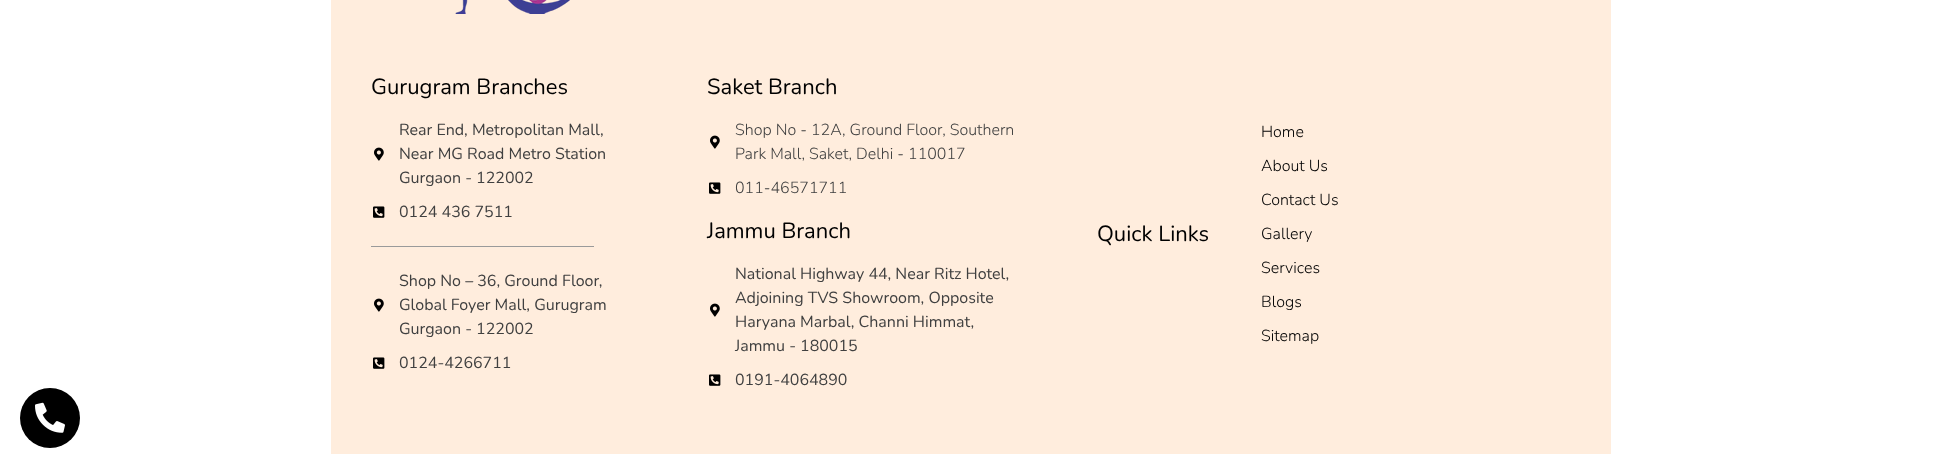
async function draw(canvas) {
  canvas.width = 1941;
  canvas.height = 475;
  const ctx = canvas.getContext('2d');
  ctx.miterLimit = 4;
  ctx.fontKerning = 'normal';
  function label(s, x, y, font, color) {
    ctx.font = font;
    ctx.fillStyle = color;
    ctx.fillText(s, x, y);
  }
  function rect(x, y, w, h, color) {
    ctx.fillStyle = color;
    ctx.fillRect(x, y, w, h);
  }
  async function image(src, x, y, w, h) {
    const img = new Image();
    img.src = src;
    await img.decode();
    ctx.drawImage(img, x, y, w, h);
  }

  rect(0, 0, 1941, 475, '#fff');
  rect(331, 0, 1280, 454, '#ffeddd');
  await image('assets/img1.png', 455, 0, 115, 14);
  label('Gurugram Branches', 371, 94, '22px Nunito', '#000');
  await image('assets/img2.png', 374, 147, 10, 14);
  label('Rear End, Metropolitan Mall,', 399, 135, '16px Nunito', '#404040');
  label('Near MG Road Metro Station', 399, 159, '16px Nunito', '#404040');
  label('Gurgaon - 122002', 399, 183, '16px Nunito', '#404040');
  await image('assets/img3.png', 373, 206, 12, 12);
  label('0124 436 7511', 399, 217, '16px Nunito', '#404040');
  rect(371, 246, 223, 1, '#9a9a9a');
  await image('assets/img2.png', 374, 298, 10, 14);
  label('Shop No – 36, Ground Floor,', 399, 286, '16px Nunito', '#404040');
  label('Global Foyer Mall, Gurugram', 399, 310, '16px Nunito', '#404040');
  label('Gurgaon - 122002', 399, 334, '16px Nunito', '#404040');
  await image('assets/img3.png', 373, 357, 12, 12);
  label('0124-4266711', 399, 368, '16px Nunito', '#404040');
  label('Saket Branch', 707, 94, '22px Nunito', '#000');
  await image('assets/img2.png', 710, 135, 10, 14);
  label('Shop No - 12A, Ground Floor, Southern', 735, 135, '300 16px Nunito', '#404040');
  label('Park Mall, Saket, Delhi - 110017', 735, 159, '300 16px Nunito', '#404040');
  await image('assets/img3.png', 709, 182, 12, 12);
  label('011-46571711', 735, 193, '300 16px Nunito', '#404040');
  label('Jammu Branch', 707, 238, '22px Nunito', '#000');
  await image('assets/img2.png', 710, 303, 10, 14);
  label('National Highway 44, Near Ritz Hotel,', 735, 279, '16px Nunito', '#404040');
  label('Adjoining TVS Showroom, Opposite', 735, 303, '16px Nunito', '#404040');
  label('Haryana Marbal, Channi Himmat,', 735, 327, '16px Nunito', '#404040');
  label('Jammu - 180015', 735, 351, '16px Nunito', '#404040');
  await image('assets/img3.png', 709, 374, 12, 12);
  label('0191-4064890', 735, 385, '16px Nunito', '#404040');
  label('Quick Links', 1097, 241, '22px Nunito', '#000');
  label('Home', 1261, 137, '300 16px Nunito', '#000');
  label('About Us', 1261, 171, '300 16px Nunito', '#000');
  label('Contact Us', 1261, 205, '300 16px Nunito', '#000');
  label('Gallery', 1261, 239, '300 16px Nunito', '#000');
  label('Services', 1261, 273, '300 16px Nunito', '#000');
  label('Blogs', 1261, 307, '300 16px Nunito', '#000');
  label('Sitemap', 1261, 341, '300 16px Nunito', '#000');
  ctx.beginPath();
  ctx.arc(50, 418, 30, 0, 2 * Math.PI);
  ctx.fill();
  await image('assets/img4.png', 35, 402, 30, 31);
}

draw(document.querySelector('canvas'));
